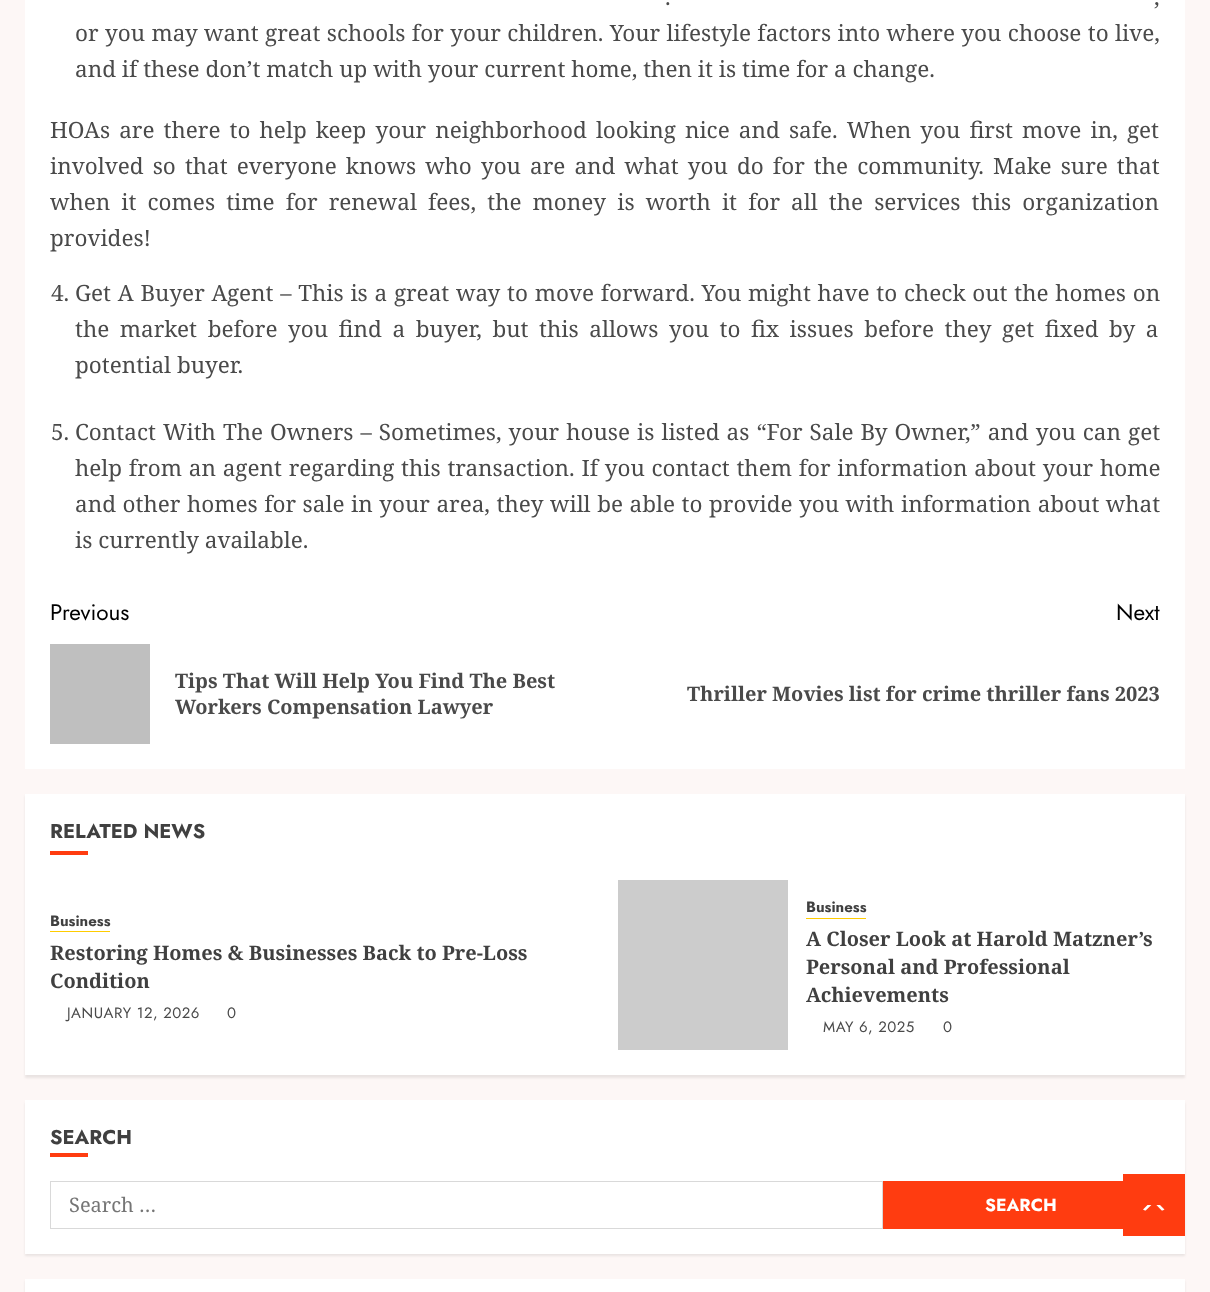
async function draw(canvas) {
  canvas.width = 1210;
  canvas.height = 1292;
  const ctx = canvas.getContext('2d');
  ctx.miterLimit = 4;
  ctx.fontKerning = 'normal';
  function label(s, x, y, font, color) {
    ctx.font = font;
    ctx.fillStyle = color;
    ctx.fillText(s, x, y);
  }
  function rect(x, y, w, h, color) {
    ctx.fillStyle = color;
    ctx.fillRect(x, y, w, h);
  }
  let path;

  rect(0, 0, 1210, 1292, '#fdf7f6');
  rect(25, 0, 1160, 769, '#fff');
  ctx.wordSpacing = '1px';
  label('.', 665, 5, '22.5px Noto Serif', '#4a4a4a');
  label(',', 1154, 5, '22.5px Noto Serif', '#4a4a4a');
  ctx.wordSpacing = '0.6px';
  label('or you may want great schools for your children. Your lifestyle factors into where you choose to live,', 75, 41, '22.5px Noto Serif', '#4a4a4a');
  ctx.wordSpacing = '0px';
  label('and if these don’t match up with your current home, then it is time for a change.', 75, 77, '22.5px Noto Serif', '#4a4a4a');
  ctx.wordSpacing = '3.25px';
  label('HOAs are there to help keep your neighborhood looking nice and safe. When you first move in, get', 50, 138, '22.5px Noto Serif', '#4a4a4a');
  label('involved so that everyone knows who you are and what you do for the community. Make sure that', 50, 174, '22.5px Noto Serif', '#4a4a4a');
  ctx.wordSpacing = '5.25px';
  label('when it comes time for renewal fees, the money is worth it for all the services this organization', 50, 210, '22.5px Noto Serif', '#4a4a4a');
  ctx.wordSpacing = '0px';
  label('provides!', 50, 246, '22.5px Noto Serif', '#4a4a4a');
  label('4.', 51, 301, '22.5px Noto Serif', '#4a4a4a');
  ctx.wordSpacing = '0.9px';
  label('Get A Buyer Agent – This is a great way to move forward. You might have to check out the homes on', 75, 301, '22.5px Noto Serif', '#4a4a4a');
  ctx.wordSpacing = '4.75px';
  label('the market before you find a buyer, but this allows you to fix issues before they get fixed by a', 75, 337, '22.5px Noto Serif', '#4a4a4a');
  ctx.wordSpacing = '0px';
  label('potential buyer.', 75, 373, '22.5px Noto Serif', '#4a4a4a');
  label('5.', 51, 440, '22.5px Noto Serif', '#4a4a4a');
  ctx.wordSpacing = '1.2px';
  label('Contact With The Owners – Sometimes, your house is listed as “For Sale By Owner,” and you can get', 75, 440, '22.5px Noto Serif', '#4a4a4a');
  ctx.wordSpacing = '0.9px';
  label('help from an agent regarding this transaction. If you contact them for information about your home', 75, 476, '22.5px Noto Serif', '#4a4a4a');
  ctx.wordSpacing = '0.7px';
  label('and other homes for sale in your area, they will be able to provide you with information about what', 75, 512, '22.5px Noto Serif', '#4a4a4a');
  ctx.wordSpacing = '0px';
  label('is currently available.', 75, 548, '22.5px Noto Serif', '#4a4a4a');
  label('Previous', 50, 620, '22.5px Jost', '#000');
  rect(50, 644, 100, 100, '#bfbfbf');
  label('Tips That Will Help You Find The Best', 175, 688, 'bold 20px Noto Serif', '#4a4a4a');
  label('Workers Compensation Lawyer', 175, 714, 'bold 20px Noto Serif', '#4a4a4a');
  label('Next', 1116, 620, '22.5px Jost', '#000');
  label('Thriller Movies list for crime thriller fans 2023', 687, 701, 'bold 20px Noto Serif', '#4a4a4a');
  ctx.fillStyle = '#00000014';
  ctx.filter = 'blur(1px)';
  ctx.beginPath();
  ctx.rect(25, 796, 1160, 282);
  ctx.fill();
  ctx.filter = 'none';
  rect(25, 794, 1160, 281, '#fff');
  label('RELATED NEWS', 50, 838, 'bold 20px Jost', '#404040');
  rect(50, 851, 38, 4, '#ff3c10');
  rect(50, 931, 60, 1, '#fc0');
  label('Business', 50, 926, 'bold 15px Jost', '#404040');
  label('Restoring Homes & Businesses Back to Pre-Loss', 50, 960, 'bold 20px Noto Serif', '#404040');
  label('Condition', 50, 988, 'bold 20px Noto Serif', '#404040');
  ctx.letterSpacing = '0.5px';
  label('JANUARY 12, 2026', 67, 1018, '15px Jost', '#4a4a4a');
  label('0', 227, 1018, '15px Jost', '#4a4a4a');
  rect(618, 880, 170, 170, '#ccc');
  rect(806, 918, 60, 1, '#fc0');
  ctx.letterSpacing = '0px';
  label('Business', 806, 912, 'bold 15px Jost', '#404040');
  label('A Closer Look at Harold Matzner’s', 806, 946, 'bold 20px Noto Serif', '#404040');
  label('Personal and Professional', 806, 974, 'bold 20px Noto Serif', '#404040');
  label('Achievements', 806, 1002, 'bold 20px Noto Serif', '#404040');
  ctx.letterSpacing = '0.5px';
  label('MAY 6, 2025', 823, 1032, '15px Jost', '#4a4a4a');
  label('0', 943, 1032, '15px Jost', '#4a4a4a');
  ctx.fillStyle = '#00000014';
  ctx.filter = 'blur(1px)';
  ctx.beginPath();
  ctx.rect(25, 1103, 1160, 153);
  ctx.fill();
  ctx.filter = 'none';
  rect(25, 1100, 1160, 154, '#fff');
  ctx.letterSpacing = '0px';
  label('SEARCH', 50, 1144, 'bold 20px Jost', '#404040');
  rect(50, 1153, 38, 4, '#ff3c10');
  ctx.strokeStyle = '#d9d9d9';
  ctx.strokeRect(50.5, 1181.5, 832, 47);
  label('Search …', 69, 1212, '20px Noto Serif', '#757575');
  rect(883, 1181, 240, 48, '#ff3c10');
  label('SEARCH', 985, 1211, 'bold 17.5px Jost', '#fff');
  ctx.fillStyle = '#00000014';
  ctx.filter = 'blur(1px)';
  ctx.beginPath();
  ctx.rect(25, 1281, 1160, 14);
  ctx.fill();
  ctx.filter = 'none';
  rect(25, 1279, 1160, 13, '#fff');
  rect(1123, 1174, 62, 62, '#ff3c10');
  ctx.fillStyle = '#fff';
  path = new Path2D('M1164.5 1209.5C1161.5 1212 1157 1211 1154 1211C1150.5 1211 1146 1212 1143 1209.5L1147.5 1205H1160Z');
  ctx.fill(path);
  ctx.fillStyle = '#ff3c10';
  path = new Path2D('M1166 1215H1141L1154 1202.5Z');
  ctx.fill(path);
}

draw(document.querySelector('canvas'));
